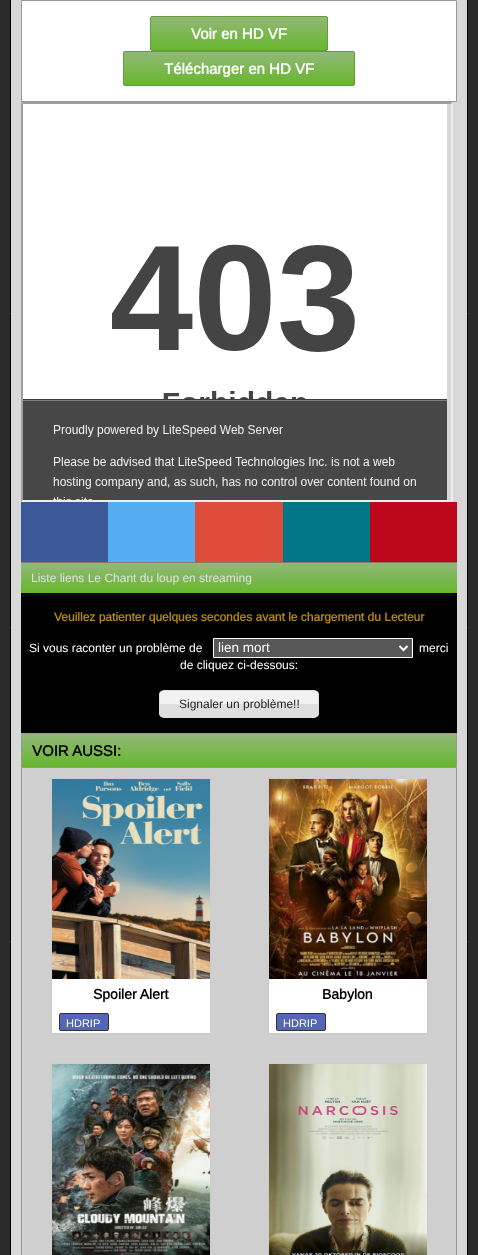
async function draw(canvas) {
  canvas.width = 478;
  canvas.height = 1255;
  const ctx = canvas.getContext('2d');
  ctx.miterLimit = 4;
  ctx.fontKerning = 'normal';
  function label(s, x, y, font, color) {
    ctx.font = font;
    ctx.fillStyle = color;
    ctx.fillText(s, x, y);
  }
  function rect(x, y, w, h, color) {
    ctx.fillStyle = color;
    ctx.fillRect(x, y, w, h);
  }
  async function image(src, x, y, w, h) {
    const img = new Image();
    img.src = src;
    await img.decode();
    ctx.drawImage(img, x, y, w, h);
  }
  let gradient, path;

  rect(0, 0, 478, 1255, '#2b2b2b');
  ctx.fillStyle = '#d8d8d8';
  ctx.beginPath();
  ctx.rect(10.5, -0.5, 457, 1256);
  ctx.fill();
  ctx.strokeStyle = '#000';
  ctx.stroke();
  ctx.fillStyle = '#fff';
  ctx.beginPath();
  ctx.rect(21.5, 0.5, 435, 101);
  ctx.fill();
  ctx.strokeStyle = '#999';
  ctx.stroke();
  ctx.save();
  ctx.beginPath();
  ctx.roundRect(150, 16, 178, 35, 2);
  ctx.clip();
  gradient = ctx.createLinearGradient(239, 17, 239, 50);
  gradient.addColorStop(0, '#92b878');
  gradient.addColorStop(1, '#67b72d');
  ctx.fillStyle = gradient;
  ctx.fillRect(150, 17, 178, 33);
  ctx.restore();
  ctx.beginPath();
  ctx.roundRect(150.5, 16.5, 177, 34, 1.5);
  ctx.strokeStyle = '#639e38';
  ctx.stroke();
  label('Voir en HD VF', 191, 39, 'bold 15px Arimo', '#fff');
  ctx.save();
  ctx.beginPath();
  ctx.roundRect(123, 51, 232, 35, 2);
  ctx.clip();
  gradient = ctx.createLinearGradient(239, 52, 239, 85);
  gradient.addColorStop(0, '#92b878');
  gradient.addColorStop(1, '#67b72d');
  ctx.fillStyle = gradient;
  ctx.fillRect(123, 52, 232, 33);
  ctx.restore();
  ctx.beginPath();
  ctx.roundRect(123.5, 51.5, 231, 34, 1.5);
  ctx.stroke();
  label('Télécharger en HD VF', 164, 74, 'bold 15px Arimo', '#fff');
  ctx.fillStyle = '#9f9f9f';
  path = new Path2D('M21 102H453L451 104H23Z');
  ctx.fill(path);
  ctx.fillStyle = '#eee';
  path = new Path2D('M453 102V502L451 500V104Z');
  ctx.fill(path);
  path = new Path2D('M453 502H21L23 500H451Z');
  ctx.fill(path);
  ctx.fillStyle = '#9f9f9f';
  path = new Path2D('M21 502V102L23 104V500Z');
  ctx.fill(path);
  await image('assets/img1.png', 23, 104, 424, 396);
  rect(21, 502, 87, 60, '#3b5999');
  rect(108, 502, 87, 60, '#55acee');
  rect(195, 502, 88, 60, '#dd4b39');
  rect(283, 502, 87, 60, '#007785');
  rect(370, 502, 87, 60, '#bd081c');
  rect(21, 593, 436, 1, '#000');
  gradient = ctx.createLinearGradient(239, 563, 239, 593);
  gradient.addColorStop(0, '#92b878');
  gradient.addColorStop(1, '#67b72d');
  ctx.fillStyle = gradient;
  ctx.fillRect(21, 563, 436, 30);
  rect(21, 562, 436, 1, '#867b6a');
  label('Liste liens Le Chant du loup en streaming', 31, 582, '12px Arimo', '#e1e1e1');
  rect(21, 596, 436, 137, '#000');
  rect(21, 594, 436, 2, '#0c0c0c');
  label('Veuillez patienter quelques secondes avant le chargement du Lecteur', 54, 621, 'bold 12px Arimo', '#b8860b');
  label('Si vous raconter un problème de', 29, 652, '12px Arimo', '#fff');
  ctx.fillStyle = '#575757';
  ctx.beginPath();
  ctx.rect(213.5, 638.5, 199, 19);
  ctx.fill();
  ctx.strokeStyle = '#fff';
  ctx.stroke();
  path = new Path2D('M399.5 646L403.5 650L407.5 646');
  ctx.lineWidth = 2;
  ctx.stroke(path);
  label('lien mort', 218, 652, '13.5px Liberation Sans', '#fff');
  label('merci', 419, 652, '12px Arimo', '#fff');
  label('de cliquez ci-dessous:', 180, 669, '12px Arimo', '#fff');
  ctx.save();
  ctx.beginPath();
  ctx.roundRect(159, 690, 160, 28, 5);
  ctx.clip();
  rect(159, 691, 160, 13, '#f2f2f2');
  rect(159, 704, 160, 13, '#dedede');
  ctx.restore();
  ctx.beginPath();
  ctx.roundRect(159.5, 690.5, 159, 27, 4.5);
  ctx.strokeStyle = '#dedede';
  ctx.lineWidth = 1;
  ctx.stroke();
  label('Signaler un problème!!', 179, 708, '12px Arimo', '#222');
  gradient = ctx.createLinearGradient(239, 734, 239, 767);
  gradient.addColorStop(0, '#92b878');
  gradient.addColorStop(1, '#67b72d');
  ctx.fillStyle = gradient;
  ctx.fillRect(22, 734, 434, 33);
  rect(21, 733, 436, 1, '#979797');
  rect(456, 733, 1, 34, '#979797');
  rect(21, 733, 1, 34, '#979797');
  label('VOIR AUSSI:', 32, 756, 'bold 15px Arimo', '#000');
  ctx.fillStyle = '#cfcfcf';
  ctx.beginPath();
  ctx.rect(21.5, 767.5, 435, 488);
  ctx.fill();
  ctx.strokeStyle = '#979797';
  ctx.stroke();
  rect(52, 979, 158, 54, '#fff');
  rect(51, 778, 160, 1, '#ccc');
  rect(210, 778, 1, 257, '#ccc');
  rect(51, 1033, 160, 2, '#ccc');
  rect(51, 778, 1, 257, '#ccc');
  await image('assets/img2.png', 52, 779, 158, 200);
  label('Spoiler Alert', 93, 999, 'bold 14px Arimo', '#000');
  ctx.fillStyle = '#5566b5';
  ctx.beginPath();
  ctx.roundRect(59.5, 1013.5, 49, 17, 1.5);
  ctx.fill();
  ctx.strokeStyle = '#333';
  ctx.stroke();
  label('HDRIP', 66, 1027, '11px Arimo', '#fff');
  rect(269, 979, 158, 54, '#fff');
  rect(268, 778, 160, 1, '#ccc');
  rect(427, 778, 1, 257, '#ccc');
  rect(268, 1033, 160, 2, '#ccc');
  rect(268, 778, 1, 257, '#ccc');
  await image('assets/img3.png', 269, 779, 158, 200);
  label('Babylon', 322, 999, 'bold 14px Arimo', '#000');
  ctx.fillStyle = '#5566b5';
  ctx.beginPath();
  ctx.roundRect(276.5, 1013.5, 49, 17, 1.5);
  ctx.fill();
  ctx.stroke();
  label('HDRIP', 283, 1027, '11px Arimo', '#fff');
  rect(51, 1063, 160, 1, '#ccc');
  rect(210, 1063, 1, 192, '#ccc');
  rect(51, 1063, 1, 192, '#ccc');
  await image('assets/img4.png', 52, 1064, 158, 191);
  rect(268, 1063, 160, 1, '#ccc');
  rect(427, 1063, 1, 192, '#ccc');
  rect(268, 1063, 1, 192, '#ccc');
  await image('assets/img5.png', 269, 1064, 158, 191);
}

draw(document.querySelector('canvas'));
